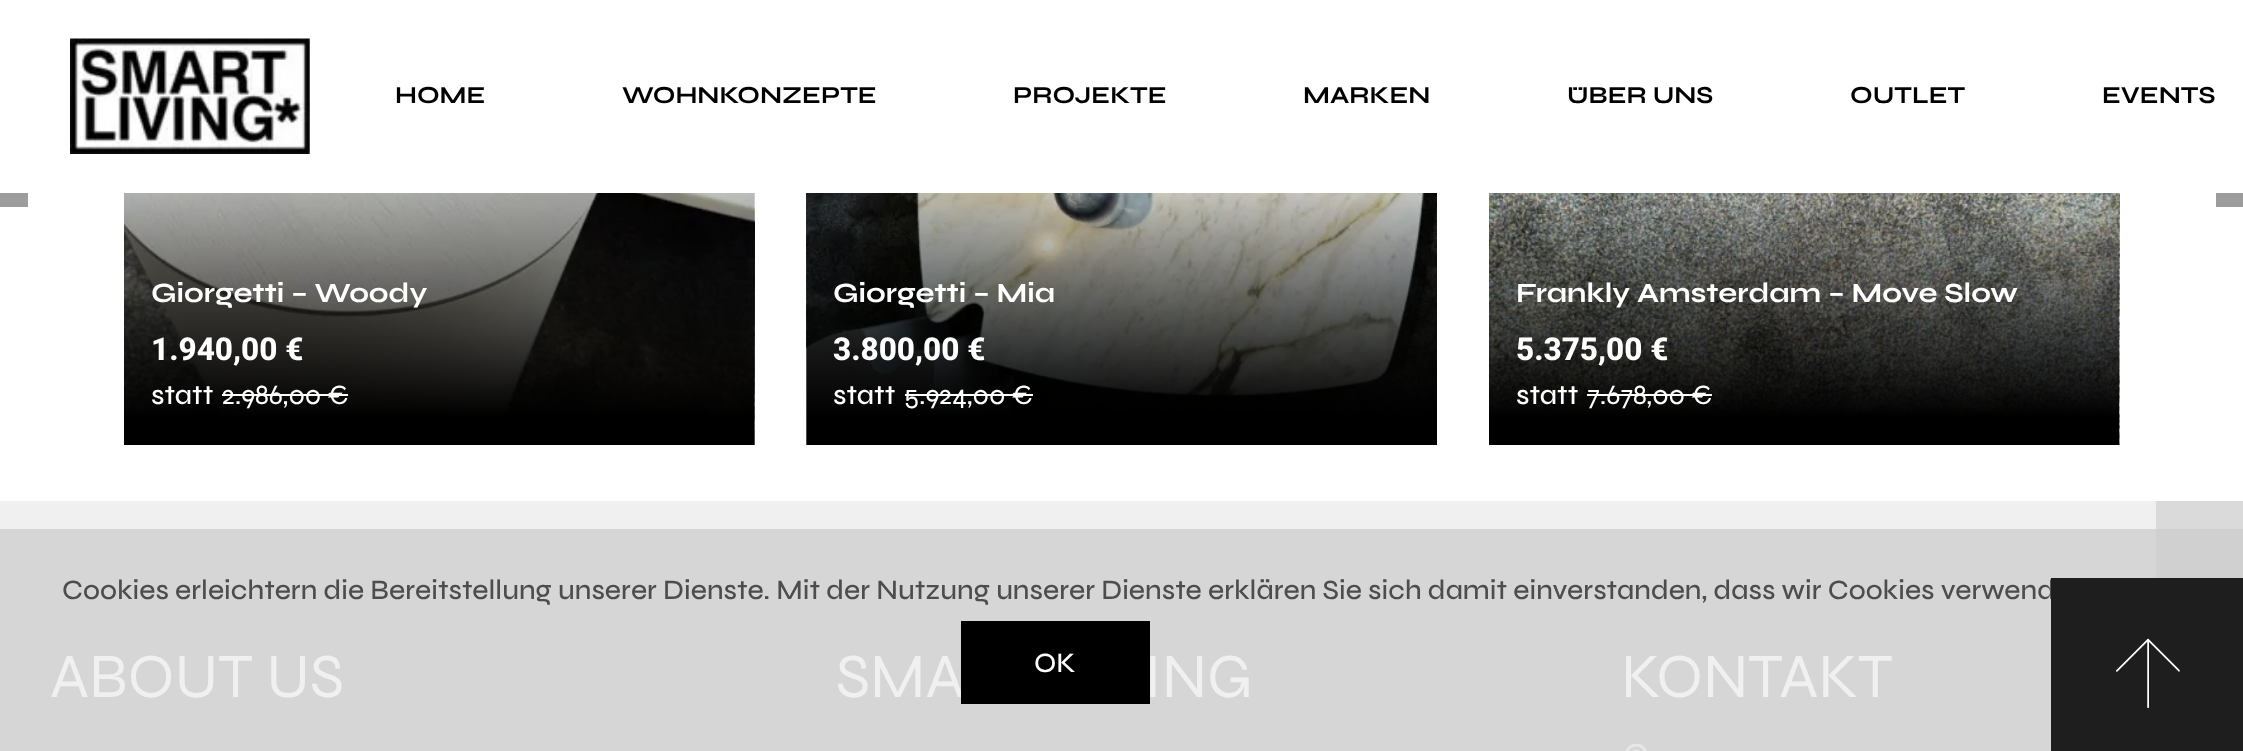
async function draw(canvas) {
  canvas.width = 2243;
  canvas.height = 751;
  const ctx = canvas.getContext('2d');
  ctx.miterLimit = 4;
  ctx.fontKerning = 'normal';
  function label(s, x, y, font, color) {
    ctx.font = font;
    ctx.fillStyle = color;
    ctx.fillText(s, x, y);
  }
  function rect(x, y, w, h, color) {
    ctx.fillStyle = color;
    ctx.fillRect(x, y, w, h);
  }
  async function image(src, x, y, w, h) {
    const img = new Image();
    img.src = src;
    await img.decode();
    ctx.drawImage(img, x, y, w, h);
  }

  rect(0, 0, 2243, 751, '#fff');
  rect(0, 501, 2156, 28, '#f0f0f0');
  rect(2156, 501, 87, 28, '#dadada');
  await image('assets/img1.png', 70, 38, 240, 116);
  label('HOME', 395, 103, 'bold 24.5px Syne', '#000');
  label('WOHNKONZEPTE', 622, 103, 'bold 24.5px Syne', '#000');
  label('PROJEKTE', 1013, 103, 'bold 24.5px Syne', '#000');
  label('MARKEN', 1303, 103, 'bold 24.5px Syne', '#000');
  label('ÜBER UNS', 1567, 103, 'bold 24.5px Syne', '#000');
  label('OUTLET', 1850, 103, 'bold 24.5px Syne', '#000');
  label('EVENTS', 2102, 103, 'bold 24.5px Syne', '#000');
  rect(0, 193, 28, 14, '#9c9c9c');
  rect(2216, 193, 27, 14, '#9c9c9c');
  await image('assets/img2.png', 124, 193, 631, 252);
  label('Giorgetti – Woody', 151, 302, 'bold 28px Syne', '#fff');
  label('1.940,00 €', 151, 360, '800 31.5px Roboto', '#fff');
  label('statt', 151, 404, '500 28px Syne', '#fff');
  label('2.986,00 €', 222, 404, '28px Syne', '#fff');
  rect(222, 394, 126, 2, '#fff');
  await image('assets/img3.png', 806, 193, 631, 252);
  label('Giorgetti – Mia', 833, 302, 'bold 28px Syne', '#fff');
  label('3.800,00 €', 833, 360, '800 31.5px Roboto', '#fff');
  label('statt', 833, 404, '500 28px Syne', '#fff');
  label('5.924,00 €', 904, 404, '28px Syne', '#fff');
  rect(905, 394, 128, 2, '#fff');
  await image('assets/img4.png', 1489, 193, 631, 252);
  label('Frankly Amsterdam – Move Slow', 1516, 302, 'bold 28px Syne', '#fff');
  label('5.375,00 €', 1516, 360, '800 31.5px Roboto', '#fff');
  label('statt', 1516, 404, '500 28px Syne', '#fff');
  label('7.678,00 €', 1587, 404, '28px Syne', '#fff');
  rect(1587, 394, 125, 2, '#fff');
  rect(0, 529, 2156, 89, '#d6d6d6');
  rect(2156, 529, 87, 49, '#d0d0d0');
  rect(0, 618, 2051, 133, '#d6d6d6');
  label('ABOUT US', 50, 697, '63px Syne', '#f0f0f0');
  label('SMA', 836, 697, '63px Syne', '#f0f0f0');
  label('ING', 1144, 697, '63px Syne', '#f0f0f0');
  label('KONTAKT', 1621, 697, '63px Syne', '#f0f0f0');
  await image('assets/img5.png', 1625, 743, 22, 8);
  label('Cookies erleichtern die Bereitstellung unserer Dienste. Mit der Nutzung unserer Dienste erklären Sie sich damit einverstanden, dass wir Cookies verwend', 62, 599, '500 28px Syne', '#4d4d4d');
  rect(2051, 578, 192, 173, '#1e1e1e');
  await image('assets/img6.png', 2116, 638, 64, 70);
  rect(961, 621, 189, 83, '#000');
  label('OK', 1034, 672, '500 28px Syne', '#fff');
}

draw(document.querySelector('canvas'));
